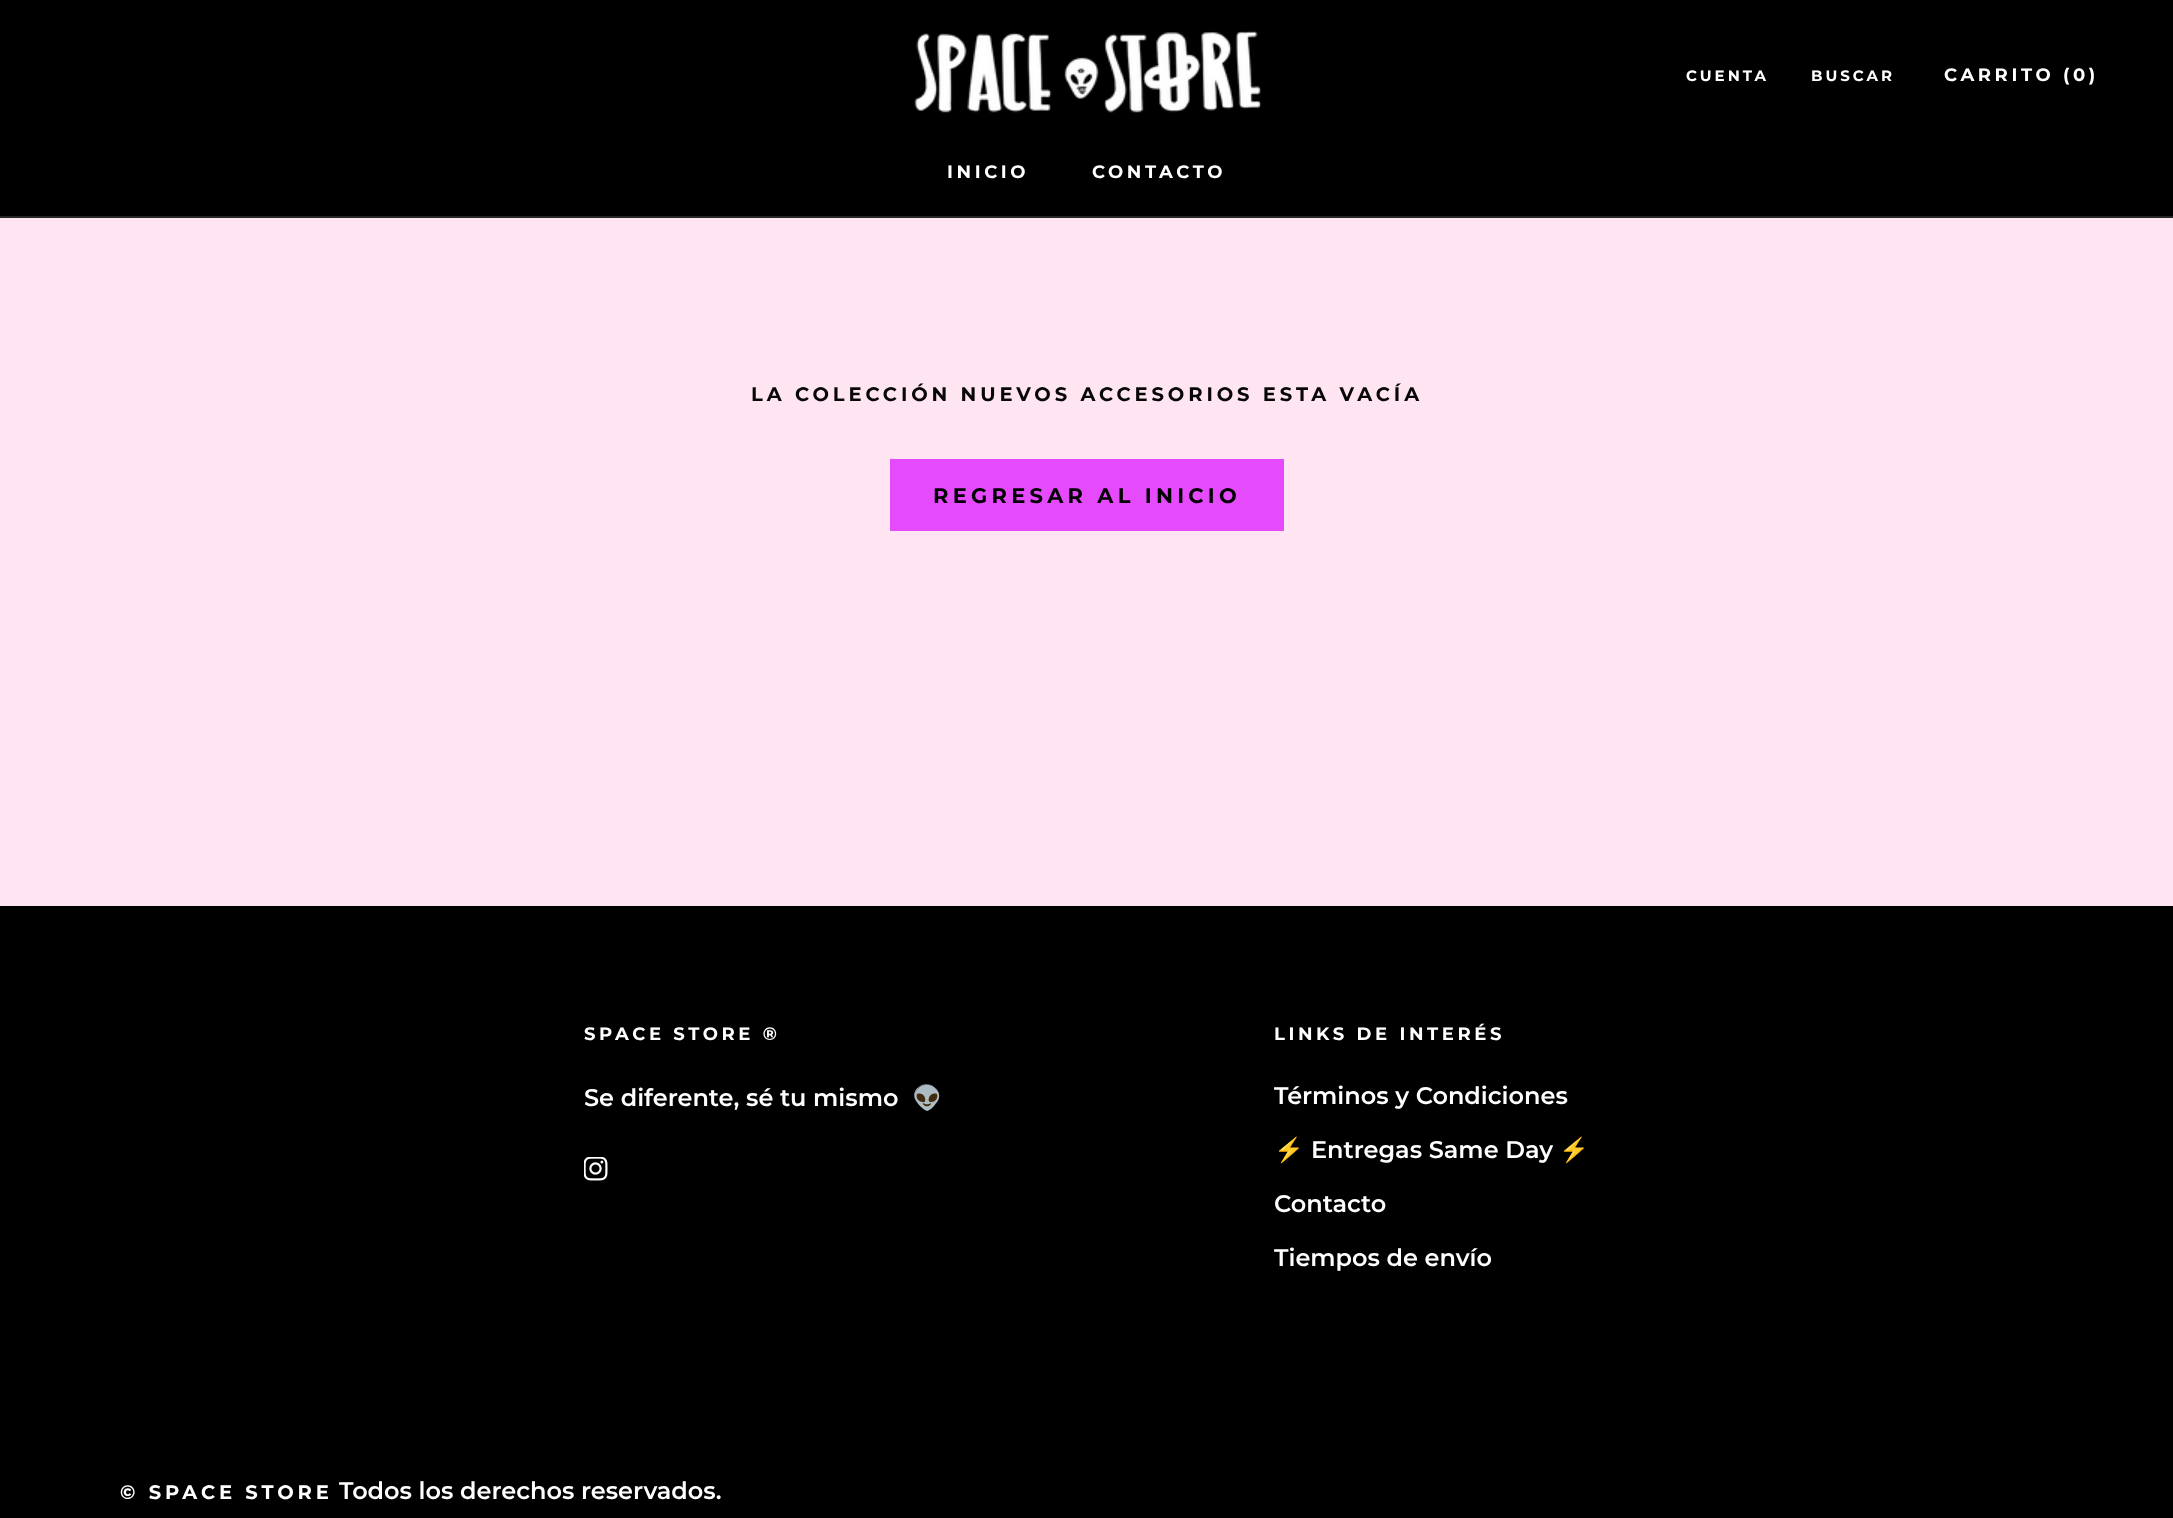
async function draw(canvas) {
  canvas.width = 2173;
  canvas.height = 1518;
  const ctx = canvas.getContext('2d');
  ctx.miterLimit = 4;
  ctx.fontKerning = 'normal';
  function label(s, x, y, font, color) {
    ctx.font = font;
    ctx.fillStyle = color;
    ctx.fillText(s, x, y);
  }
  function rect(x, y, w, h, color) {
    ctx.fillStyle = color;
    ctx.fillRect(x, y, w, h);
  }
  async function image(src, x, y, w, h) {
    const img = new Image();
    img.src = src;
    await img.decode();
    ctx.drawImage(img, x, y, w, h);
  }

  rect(0, 0, 2173, 1518, '#ffe5f2');
  rect(0, 0, 2173, 216, '#000');
  rect(0, 216, 2173, 2, '#262626');
  await image('assets/img1.png', 914, 31, 347, 82);
  ctx.letterSpacing = '3px';
  label('CUENTA', 1686, 81, 'bold 15px Montserrat', '#fff');
  label('BUSCAR', 1811, 81, 'bold 15px Montserrat', '#fff');
  ctx.letterSpacing = '3.6px';
  label('CARRITO (0)', 1944, 81, 'bold 18px Montserrat', '#fff');
  label('INICIO', 947, 178, 'bold 18px Montserrat', '#fff');
  label('CONTACTO', 1092, 178, 'bold 18px Montserrat', '#fff');
  ctx.letterSpacing = '3.9px';
  label('LA COLECCIÓN NUEVOS ACCESORIOS ESTA VACÍA', 751, 401, 'bold 19.5px Montserrat', '#070707');
  ctx.strokeStyle = '#e54afc';
  ctx.lineWidth = 2;
  ctx.strokeRect(891, 460, 392, 70);
  rect(892, 461, 390, 68, '#e54afc');
  ctx.letterSpacing = '4.25px';
  label('REGRESAR AL INICIO', 933, 503, 'bold 21px Montserrat', '#000');
  rect(0, 906, 2173, 612, '#000');
  ctx.letterSpacing = '3.6px';
  label('SPACE STORE ®', 584, 1040, 'bold 18px Montserrat', '#fff');
  ctx.letterSpacing = '0px';
  label('Se diferente, sé tu mismo', 584, 1106, '600 24px Montserrat', '#fff');
  label('👽', 912, 1106, 'bold 24px Noto Color Emoji', '#fff');
  await image('assets/img2.png', 584, 1157, 24, 24);
  ctx.letterSpacing = '3.6px';
  label('LINKS DE INTERÉS', 1274, 1040, 'bold 18px Montserrat', '#fff');
  ctx.letterSpacing = '0px';
  label('Términos y Condiciones', 1274, 1104, '600 24px Montserrat', '#fff');
  label('⚡️', 1274, 1158, 'bold 24px Noto Color Emoji', '#fff');
  label('Entregas Same Day', 1311, 1158, '600 24px Montserrat', '#fff');
  label('⚡️', 1559, 1158, 'bold 24px Noto Color Emoji', '#fff');
  label('Contacto', 1274, 1212, '600 24px Montserrat', '#fff');
  label('Tiempos de envío', 1274, 1266, '600 24px Montserrat', '#fff');
  ctx.letterSpacing = '3.9px';
  label('© SPACE STORE', 120, 1499, 'bold 19.5px Montserrat', '#fff');
  ctx.letterSpacing = '0px';
  label('Todos los derechos reservados.', 339, 1499, '600 24px Montserrat', '#fff');
}

draw(document.querySelector('canvas'));
